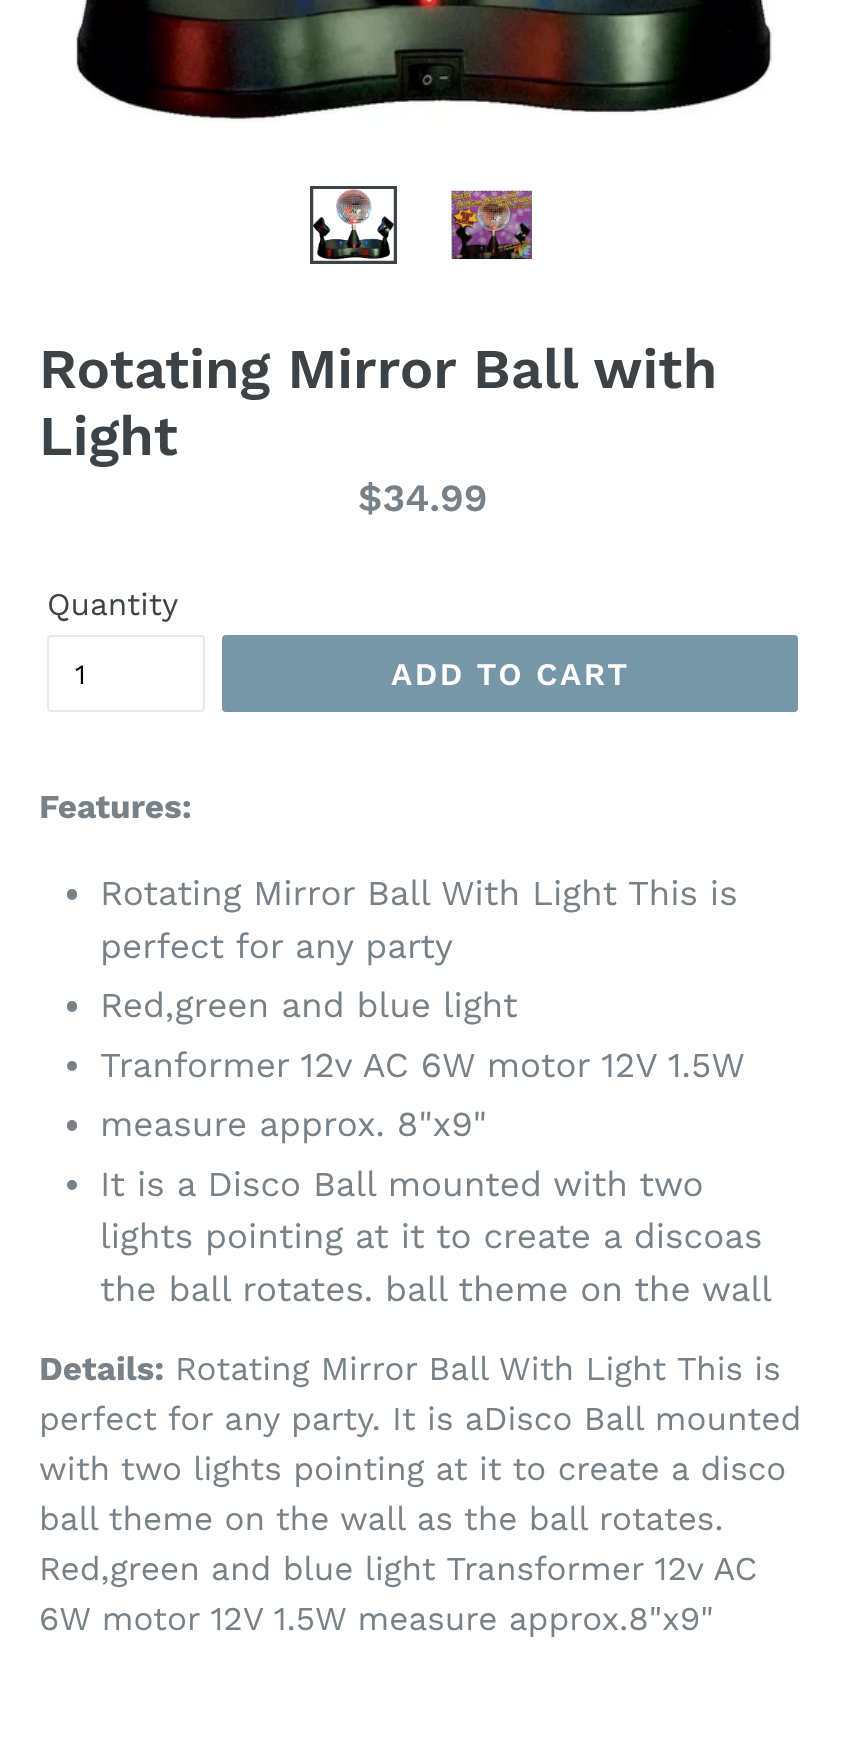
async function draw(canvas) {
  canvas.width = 845;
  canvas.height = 1750;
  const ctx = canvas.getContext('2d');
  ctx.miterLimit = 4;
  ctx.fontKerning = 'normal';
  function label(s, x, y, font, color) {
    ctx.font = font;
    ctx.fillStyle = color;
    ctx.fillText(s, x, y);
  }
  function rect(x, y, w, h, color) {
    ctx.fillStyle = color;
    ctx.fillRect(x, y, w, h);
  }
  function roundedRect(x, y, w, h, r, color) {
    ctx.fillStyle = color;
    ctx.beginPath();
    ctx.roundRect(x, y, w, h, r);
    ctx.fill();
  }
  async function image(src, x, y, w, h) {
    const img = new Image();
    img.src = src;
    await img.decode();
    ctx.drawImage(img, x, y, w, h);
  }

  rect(0, 0, 845, 1750, '#fff');
  await image('assets/img1.png', 73, 0, 702, 122);
  ctx.strokeStyle = '#3d4246';
  ctx.lineWidth = 4;
  ctx.strokeRect(312, 188, 83, 74);
  await image('assets/img2.png', 313, 189, 81, 72);
  await image('assets/img3.png', 451, 190, 81, 69);
  label('Rotating Mirror Ball with', 39, 388, '600 56px Work Sans', '#3d4246');
  label('Light', 39, 455, '600 56px Work Sans', '#3d4246');
  label('$34.99', 358, 511, '600 38.5px Work Sans', '#788188');
  label('Quantity', 47, 615, '31.5px Work Sans', '#3d4246');
  ctx.beginPath();
  ctx.roundRect(48, 636, 156, 75, 3);
  ctx.strokeStyle = '#e8e9eb';
  ctx.lineWidth = 2;
  ctx.stroke();
  label('1', 75, 684, '28px Work Sans', '#000');
  roundedRect(222, 635, 576, 77, 4, '#7796a8');
  ctx.letterSpacing = '2.5px';
  label('ADD TO CART', 391, 685, '600 31.5px Work Sans', '#fff');
  ctx.letterSpacing = '0px';
  label('Features:', 39, 818, 'bold 33.25px Work Sans', '#788188');
  roundedRect(67, 889, 10, 11, 5, '#788188');
  label('Rotating Mirror Ball With Light This is', 100, 905, '35px Work Sans', '#788188');
  label('perfect for any party', 100, 958, '35px Work Sans', '#788188');
  roundedRect(67, 1001, 10, 11, 5, '#788188');
  label('Red,green and blue light', 100, 1017, '35px Work Sans', '#788188');
  ctx.beginPath();
  ctx.arc(72, 1066, 5, 0, 2 * Math.PI);
  ctx.fill();
  label('Tranformer 12v AC 6W motor 12V 1.5W', 100, 1077, '35px Work Sans', '#788188');
  roundedRect(67, 1120, 10, 11, 5, '#788188');
  label('measure approx. 8"x9"', 100, 1136, '35px Work Sans', '#788188');
  ctx.beginPath();
  ctx.arc(72, 1185, 5, 0, 2 * Math.PI);
  ctx.fill();
  label('It is a Disco Ball mounted with two', 100, 1196, '35px Work Sans', '#788188');
  label('lights pointing at it to create a discoas', 100, 1248, '35px Work Sans', '#788188');
  label('the ball rotates. ball theme on the wall', 100, 1301, '35px Work Sans', '#788188');
  label('Details:', 39, 1380, 'bold 33.25px Work Sans', '#788188');
  label('Rotating Mirror Ball With Light This is', 175, 1380, '33.25px Work Sans', '#788188');
  label('perfect for any party. It is aDisco Ball mounted', 39, 1430, '33.25px Work Sans', '#788188');
  label('with two lights pointing at it to create a disco', 39, 1480, '33.25px Work Sans', '#788188');
  label('ball theme on the wall as the ball rotates.', 39, 1530, '33.25px Work Sans', '#788188');
  label('Red,green and blue light Transformer 12v AC', 39, 1580, '33.25px Work Sans', '#788188');
  label('6W motor 12V 1.5W measure approx.8"x9"', 39, 1630, '33.25px Work Sans', '#788188');
}

draw(document.querySelector('canvas'));
